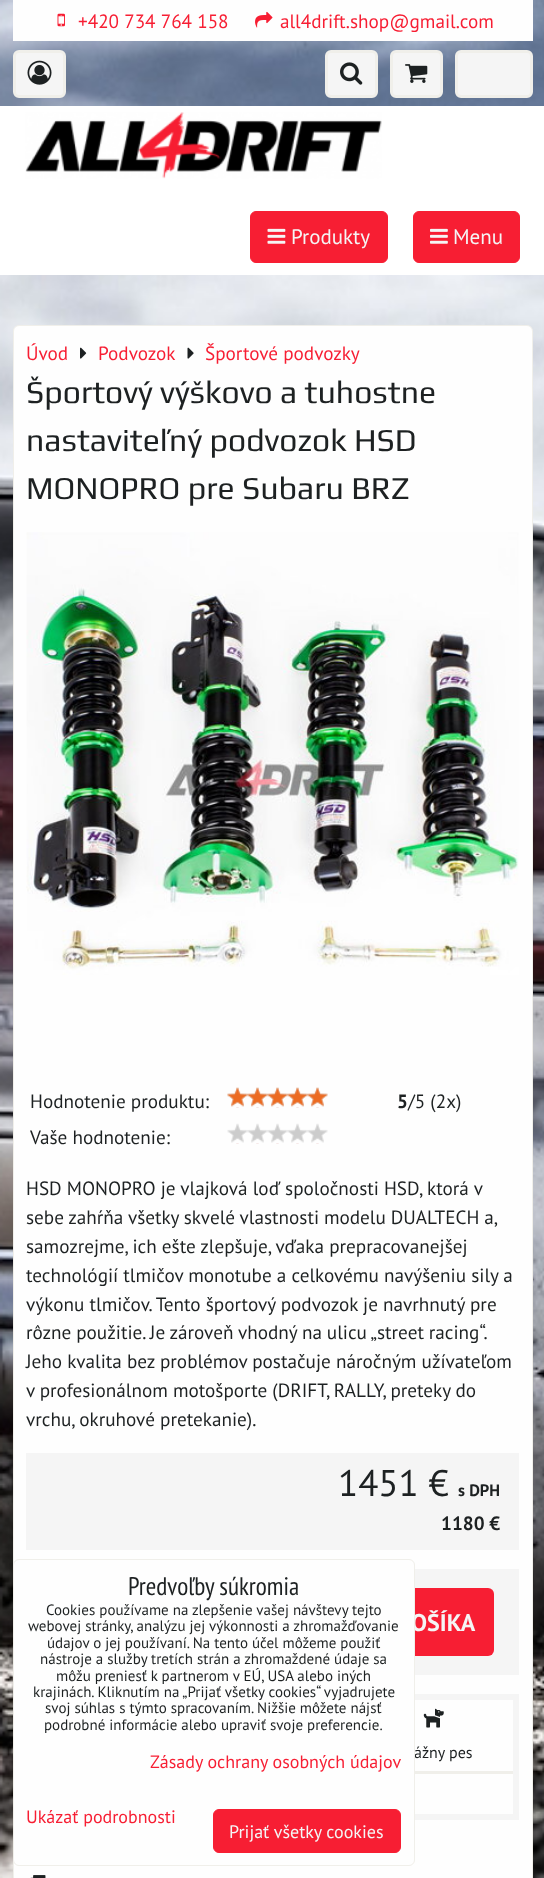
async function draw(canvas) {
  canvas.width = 544;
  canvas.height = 1878;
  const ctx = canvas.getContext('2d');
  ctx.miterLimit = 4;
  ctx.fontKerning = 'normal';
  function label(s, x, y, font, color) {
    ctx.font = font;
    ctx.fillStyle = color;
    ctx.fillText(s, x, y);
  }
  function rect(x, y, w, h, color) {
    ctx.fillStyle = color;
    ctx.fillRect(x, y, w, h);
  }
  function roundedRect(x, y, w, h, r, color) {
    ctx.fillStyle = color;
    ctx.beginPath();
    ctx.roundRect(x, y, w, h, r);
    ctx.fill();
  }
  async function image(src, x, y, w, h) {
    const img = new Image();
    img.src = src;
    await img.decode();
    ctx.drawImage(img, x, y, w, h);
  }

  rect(0, 0, 544, 1878, '#fff');
  await image('assets/img1.png', 0, 0, 544, 1878);
  rect(13, 0, 520, 41, '#fefefe');
  await image('assets/img2.png', 57, 13, 8, 14);
  label('+420 734 764 158', 78, 28, '19.2px PT Sans', '#f71e33');
  await image('assets/img3.png', 255, 11, 18, 17);
  label('all4drift.shop@gmail.com', 280, 28, '19.2px PT Sans', '#f71e33');
  ctx.fillStyle = '#f5f5f5';
  ctx.beginPath();
  ctx.roundRect(14.5, 51.5, 50, 45, 4.5);
  ctx.fill();
  ctx.strokeStyle = '#f0efea';
  ctx.lineWidth = 3;
  ctx.stroke();
  await image('assets/img4.png', 27, 60, 25, 25);
  ctx.beginPath();
  ctx.roundRect(326.5, 51.5, 50, 45, 4.5);
  ctx.fill();
  ctx.stroke();
  await image('assets/img5.png', 340, 62, 23, 23);
  ctx.beginPath();
  ctx.roundRect(391.5, 51.5, 50, 45, 4.5);
  ctx.fill();
  ctx.stroke();
  await image('assets/img6.png', 405, 64, 23, 19);
  ctx.beginPath();
  ctx.roundRect(456.5, 51.5, 75, 45, 4.5);
  ctx.fill();
  ctx.stroke();
  rect(0, 106, 544, 169, '#fff');
  await image('assets/img7.png', 25, 112, 357, 67);
  ctx.fillStyle = '#f71e33';
  ctx.beginPath();
  ctx.roundRect(250.5, 211.5, 137, 51, 5.5);
  ctx.fill();
  ctx.strokeStyle = '#f71e33';
  ctx.lineWidth = 1;
  ctx.stroke();
  await image('assets/img8.png', 267, 228, 19, 16);
  label('Produkty', 291, 244, '21px PT Sans', '#f5f5f5');
  ctx.fillStyle = '#f71e33';
  ctx.beginPath();
  ctx.roundRect(413.5, 211.5, 106, 51, 5.5);
  ctx.fill();
  ctx.stroke();
  await image('assets/img9.png', 430, 228, 18, 16);
  label('Menu', 453, 244, '21px PT Sans', '#f5f5f5');
  ctx.fillStyle = '#fefefe';
  ctx.beginPath();
  ctx.roundRect(13.5, 325.5, 519, 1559, 5.5);
  ctx.fill();
  ctx.strokeStyle = '#f0efea';
  ctx.stroke();
  label('Úvod', 26, 360, '19.2px PT Sans', '#f71e33');
  await image('assets/img10.png', 80, 347, 7, 12);
  label('Podvozok', 98, 360, '19.2px PT Sans', '#f71e33');
  await image('assets/img11.png', 187, 347, 7, 12);
  label('Športové podvozky', 205, 360, '19.2px PT Sans', '#f71e33');
  label('Športový výškovo a tuhostne', 26, 403, '32px Play', '#1d2122');
  label('nastaviteľný podvozok HSD', 26, 451, '32px Play', '#1d2122');
  label('MONOPRO pre Subaru BRZ', 26, 499, '32px Play', '#1d2122');
  await image('assets/img12.png', 26, 532, 493, 443);
  label('Hodnotenie produktu:', 30, 1108, '19.2px PT Sans', '#1d2122');
  await image('assets/img13.png', 227, 1087, 101, 21);
  await image('assets/img14.png', 227, 1087, 101, 20);
  label('5', 397, 1108, 'bold 19.2px PT Sans', '#1d2122');
  label('/5 (2x)', 408, 1108, '19.2px PT Sans', '#1d2122');
  label('Vaše hodnotenie:', 30, 1144, '19.2px PT Sans', '#1d2122');
  await image('assets/img15.png', 227, 1123, 101, 21);
  label('HSD MONOPRO je vlajková loď spoločnosti HSD, ktorá v', 26, 1195, '19.2px PT Sans', '#1d2122');
  ctx.wordSpacing = '-0.25px';
  label('sebe zahŕňa všetky skvelé vlastnosti modelu DUALTECH a,', 26, 1224, '19.2px PT Sans', '#1d2122');
  ctx.wordSpacing = '0px';
  label('samozrejme, ich ešte zlepšuje, vďaka prepracovanejšej', 26, 1253, '19.2px PT Sans', '#1d2122');
  label('technológií tlmičov monotube a celkovému navýšeniu sily a', 26, 1282, '19.2px PT Sans', '#1d2122');
  label('výkonu tlmičov. Tento športový podvozok je navrhnutý pre', 26, 1311, '19.2px PT Sans', '#1d2122');
  ctx.wordSpacing = '-0.25px';
  label('rôzne použitie. Je zároveň vhodný na ulicu „street racing“.', 26, 1339, '19.2px PT Sans', '#1d2122');
  ctx.wordSpacing = '0px';
  label('Jeho kvalita bez problémov postačuje náročným užívateľom', 26, 1368, '19.2px PT Sans', '#1d2122');
  label('v profesionálnom motošporte (DRIFT, RALLY, preteky do', 26, 1397, '19.2px PT Sans', '#1d2122');
  label('vrchu, okruhové pretekanie).', 26, 1426, '19.2px PT Sans', '#1d2122');
  rect(26, 1453, 493, 97, '#f5f5f5');
  label('1451 €', 338, 1496, '37px PT Sans', '#1d2122');
  label('s DPH', 458, 1496, 'bold 16.5px PT Sans', '#1d2122');
  label('1180 €', 441, 1530, 'bold 19.2px PT Sans', '#1d2122');
  rect(415, 1569, 104, 106, '#f5f5f5');
  roundedRect(313, 1588, 181, 68, 6, '#f71e33');
  label('OŠÍKA', 411, 1631, 'bold 24px PT Sans', '#f5f5f5');
  ctx.strokeStyle = '#f5f5f5';
  ctx.lineWidth = 6;
  ctx.strokeRect(29, 1697, 487, 120);
  await image('assets/img16.png', 423, 1708, 21, 20);
  label('ážny pes', 414, 1758, '16px PT Sans', '#1d2122');
  rect(415, 1771, 98, 3, '#f0efea');
  await image('assets/img17.png', 30, 1875, 16, 3);
  ctx.fillStyle = '#fefefe';
  ctx.beginPath();
  ctx.roundRect(13.5, 1559.5, 401, 306, 5.5);
  ctx.fill();
  ctx.strokeStyle = '#f0efea';
  ctx.lineWidth = 1;
  ctx.stroke();
  label('Predvoľby súkromia', 128, 1595, '25.5px PT Sans Narrow', '#1d2122');
  label('Cookies používame na zlepšenie vašej návštevy tejto', 46, 1615, '15px PT Sans', '#1d2122');
  label('webovej stránky, analýzu jej výkonnosti a zhromažďovanie', 28, 1631, '15px PT Sans', '#1d2122');
  label('údajov o jej používaní. Na tento účel môžeme použiť', 47, 1648, '15px PT Sans', '#1d2122');
  label('nástroje a služby tretích strán a zhromaždené údaje sa', 40, 1664, '15px PT Sans', '#1d2122');
  label('môžu preniesť k partnerom v EÚ, USA alebo iných', 56, 1681, '15px PT Sans', '#1d2122');
  label('krajinách. Kliknutím na „Prijať všetky cookies“ vyjadrujete', 33, 1697, '15px PT Sans', '#1d2122');
  label('svoj súhlas s týmto spracovaním. Nižšie môžete nájsť', 45, 1713, '15px PT Sans', '#1d2122');
  label('podrobné informácie alebo upraviť svoje preferencie.', 44, 1730, '15px PT Sans', '#1d2122');
  label('Zásady ochrany osobných údajov', 150, 1768, '18px PT Sans', '#f71e33');
  label('Ukázať podrobnosti', 26, 1823, '18px PT Sans', '#f71e33');
  ctx.beginPath();
  ctx.roundRect(213.5, 1809.5, 187, 43, 5.5);
  ctx.fill();
  ctx.strokeStyle = '#f71e33';
  ctx.stroke();
  label('Prijať všetky cookies', 229, 1838, '18px PT Sans', '#f5f5f5');
}

draw(document.querySelector('canvas'));
